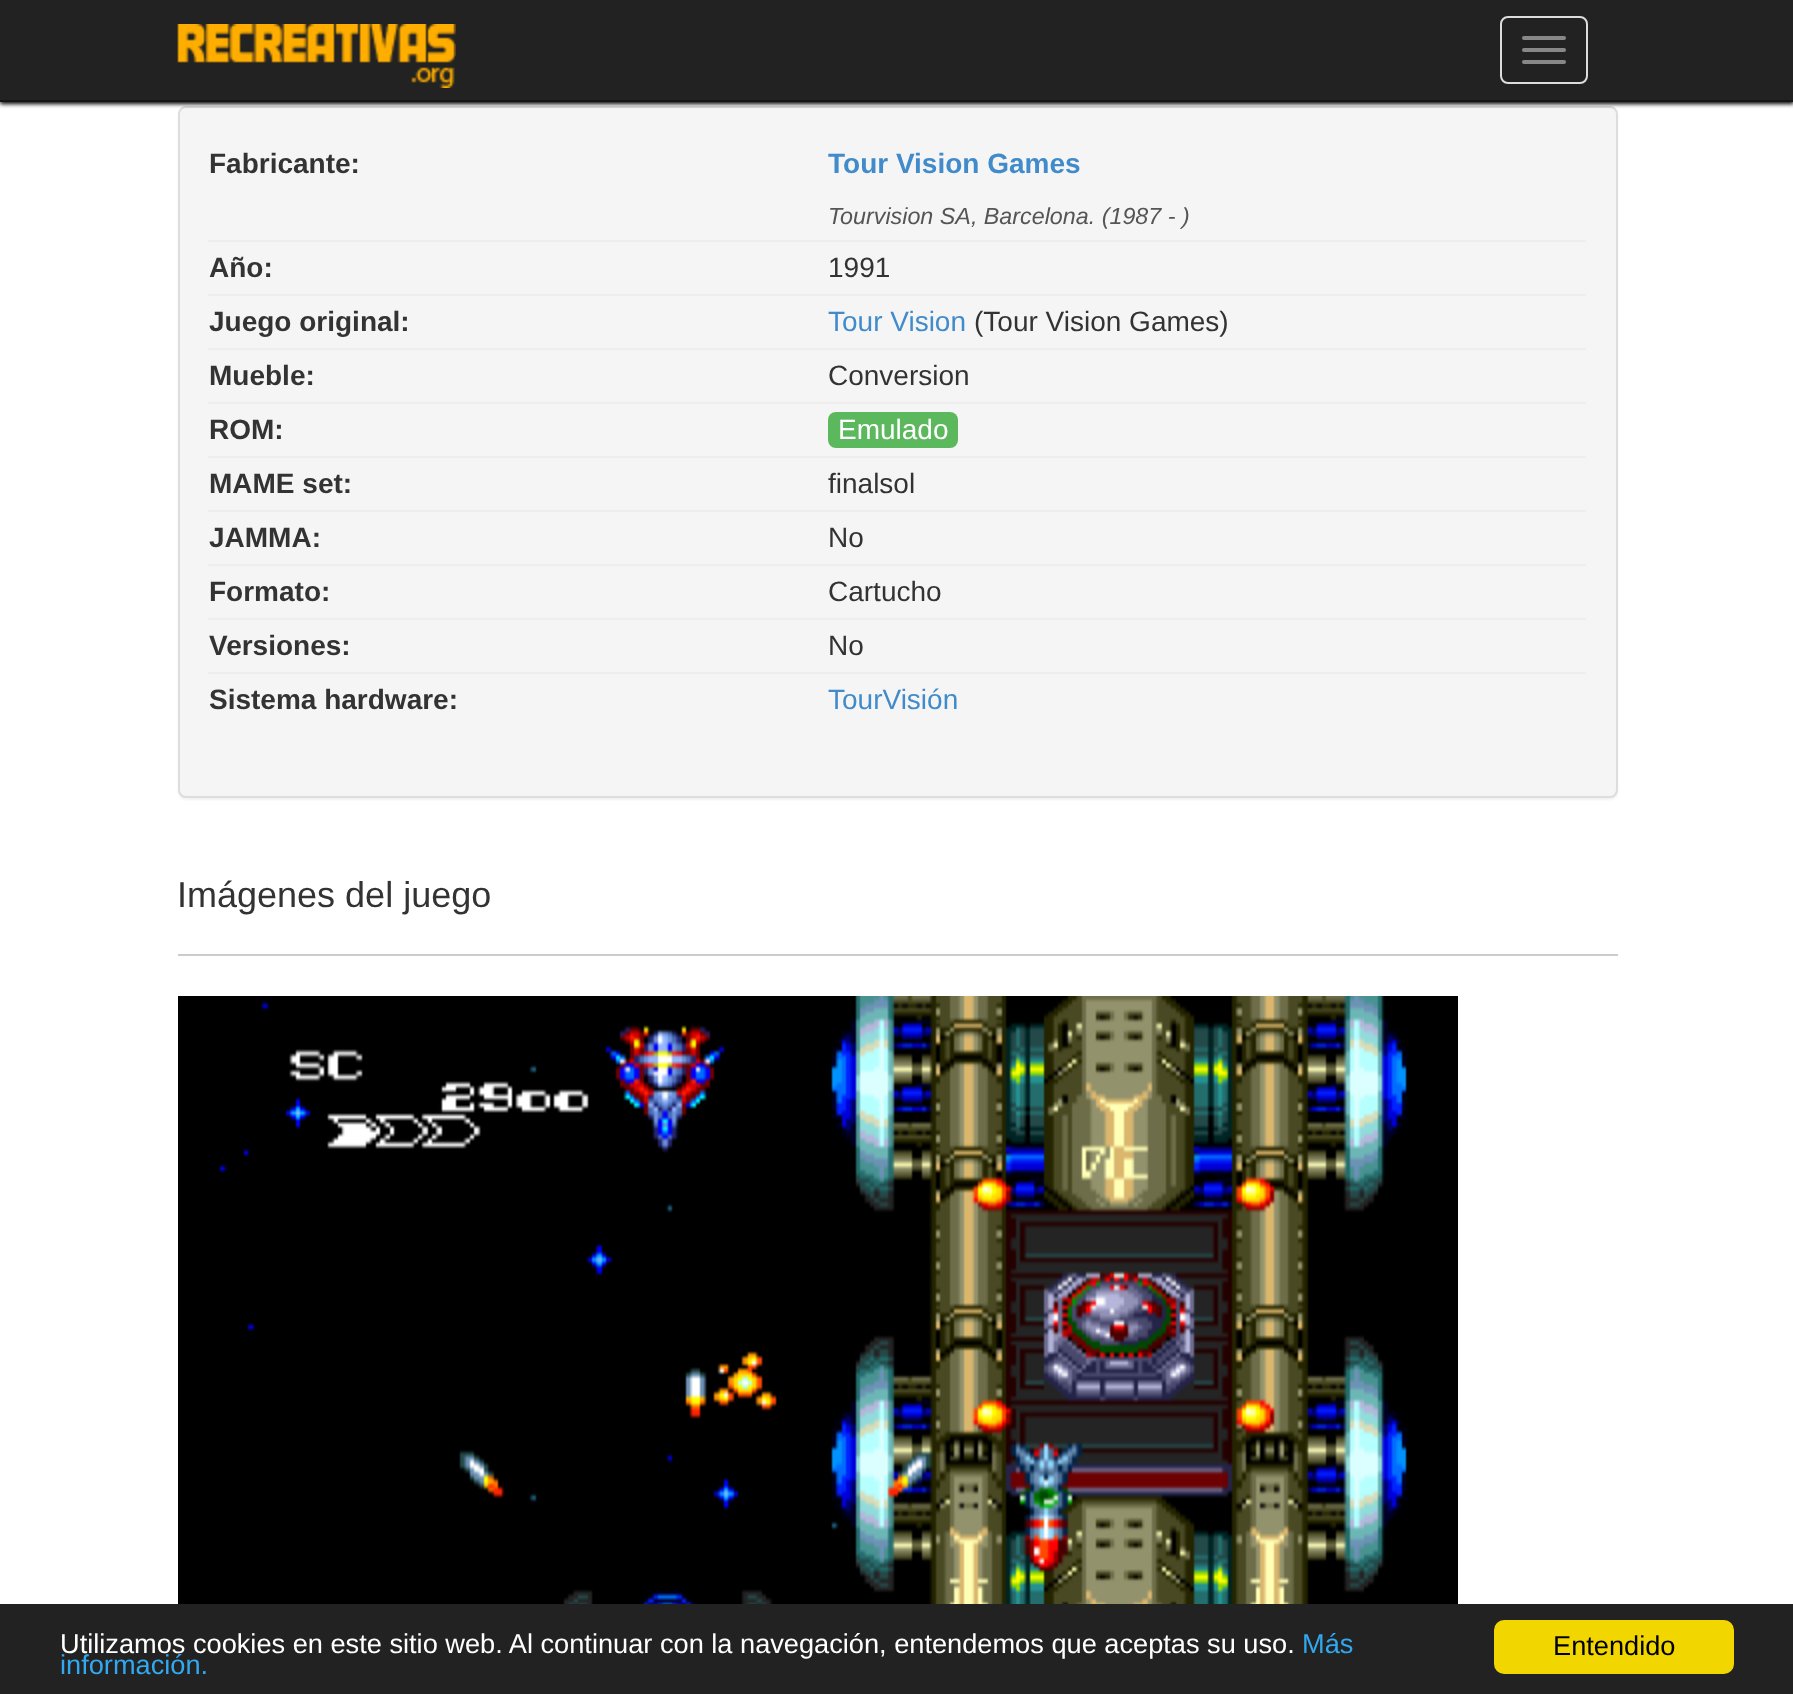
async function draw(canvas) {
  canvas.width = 1793;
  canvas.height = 1694;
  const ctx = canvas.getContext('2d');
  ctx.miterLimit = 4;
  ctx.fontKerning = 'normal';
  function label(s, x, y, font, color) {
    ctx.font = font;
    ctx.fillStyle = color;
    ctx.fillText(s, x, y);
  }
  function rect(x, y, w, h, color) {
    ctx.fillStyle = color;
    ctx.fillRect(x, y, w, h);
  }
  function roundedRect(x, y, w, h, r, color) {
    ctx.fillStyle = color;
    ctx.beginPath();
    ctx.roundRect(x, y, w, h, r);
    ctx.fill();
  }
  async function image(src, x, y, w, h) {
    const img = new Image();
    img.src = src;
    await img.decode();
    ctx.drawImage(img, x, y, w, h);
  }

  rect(0, 0, 1793, 1694, '#fff');
  ctx.fillStyle = '#0000000d';
  ctx.filter = 'blur(1px)';
  ctx.beginPath();
  ctx.roundRect(178, 108, 1440, 692, 8);
  ctx.fill();
  ctx.filter = 'none';
  ctx.fillStyle = '#f5f5f5';
  ctx.beginPath();
  ctx.roundRect(179, 107, 1438, 690, 7);
  ctx.fill();
  ctx.strokeStyle = '#ddd';
  ctx.lineWidth = 2;
  ctx.stroke();
  ctx.fillStyle = '#000';
  ctx.filter = 'blur(2px)';
  ctx.beginPath();
  ctx.rect(0, 2, 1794, 102);
  ctx.fill();
  ctx.filter = 'none';
  rect(0, 0, 1793, 100, '#222');
  rect(0, 100, 1793, 2, '#151515');
  await image('assets/img1.png', 177, 24, 279, 64);
  ctx.beginPath();
  ctx.roundRect(1501, 17, 86, 66, 7);
  ctx.stroke();
  roundedRect(1522, 36, 44, 4, 2, '#888');
  roundedRect(1522, 48, 44, 4, 2, '#888');
  roundedRect(1522, 60, 44, 4, 2, '#888');
  label('Fabricante:', 209, 173, 'bold 28px Liberation Sans', '#333');
  label('Tour Vision Games', 828, 173, 'bold 28px Liberation Sans', '#428bca');
  label('Tourvision SA, Barcelona. (1987 - )', 828, 224, 'italic 23.3px Liberation Sans', '#555');
  label('Año:', 209, 277, 'bold 28px Liberation Sans', '#333');
  rect(208, 240, 1378, 2, '#eee');
  label('1991', 828, 277, '28px Liberation Sans', '#333');
  label('Juego original:', 209, 331, 'bold 28px Liberation Sans', '#333');
  rect(208, 294, 1378, 2, '#eee');
  label('Tour Vision', 828, 331, '28px Liberation Sans', '#428bca');
  label('(Tour Vision Games)', 974, 331, '28px Liberation Sans', '#333');
  label('Mueble:', 209, 385, 'bold 28px Liberation Sans', '#333');
  rect(208, 348, 1378, 2, '#eee');
  label('Conversion', 828, 385, '28px Liberation Sans', '#333');
  label('ROM:', 209, 439, 'bold 28px Liberation Sans', '#333');
  rect(208, 402, 1378, 2, '#eee');
  roundedRect(828, 412, 130, 36, 8, '#5cb85c');
  label('Emulado', 838, 439, '28px Liberation Sans', '#fff');
  label('MAME set:', 209, 493, 'bold 28px Liberation Sans', '#333');
  rect(208, 456, 1378, 2, '#eee');
  label('finalsol', 828, 493, '28px Liberation Sans', '#333');
  label('JAMMA:', 209, 547, 'bold 28px Liberation Sans', '#333');
  rect(208, 510, 1378, 2, '#eee');
  label('No', 828, 547, '28px Liberation Sans', '#333');
  label('Formato:', 209, 601, 'bold 28px Liberation Sans', '#333');
  rect(208, 564, 1378, 2, '#eee');
  label('Cartucho', 828, 601, '28px Liberation Sans', '#333');
  label('Versiones:', 209, 655, 'bold 28px Liberation Sans', '#333');
  rect(208, 618, 1378, 2, '#eee');
  label('No', 828, 655, '28px Liberation Sans', '#333');
  label('Sistema hardware:', 209, 709, 'bold 28px Liberation Sans', '#333');
  rect(208, 672, 1378, 2, '#eee');
  label('TourVisión', 828, 709, '28px Liberation Sans', '#428bca');
  rect(178, 954, 1440, 2, '#ccc');
  label('Imágenes del juego', 177, 907, '36px Liberation Sans', '#333');
  await image('assets/img2.png', 178, 996, 1280, 608);
  rect(0, 1604, 1793, 90, '#222');
  label('Utilizamos cookies en este sitio web. Al continuar con la navegación, entendemos que aceptas su uso.', 60, 1653, '27.2px Liberation Sans', '#fff');
  label('Más', 1302, 1653, '27.2px Liberation Sans', '#31a8f0');
  label('información.', 60, 1674, '27.2px Liberation Sans', '#31a8f0');
  roundedRect(1494, 1620, 240, 54, 10, '#f1d600');
  label('Entendido', 1553, 1655, '27.2px Liberation Sans', '#000');
}

draw(document.querySelector('canvas'));
